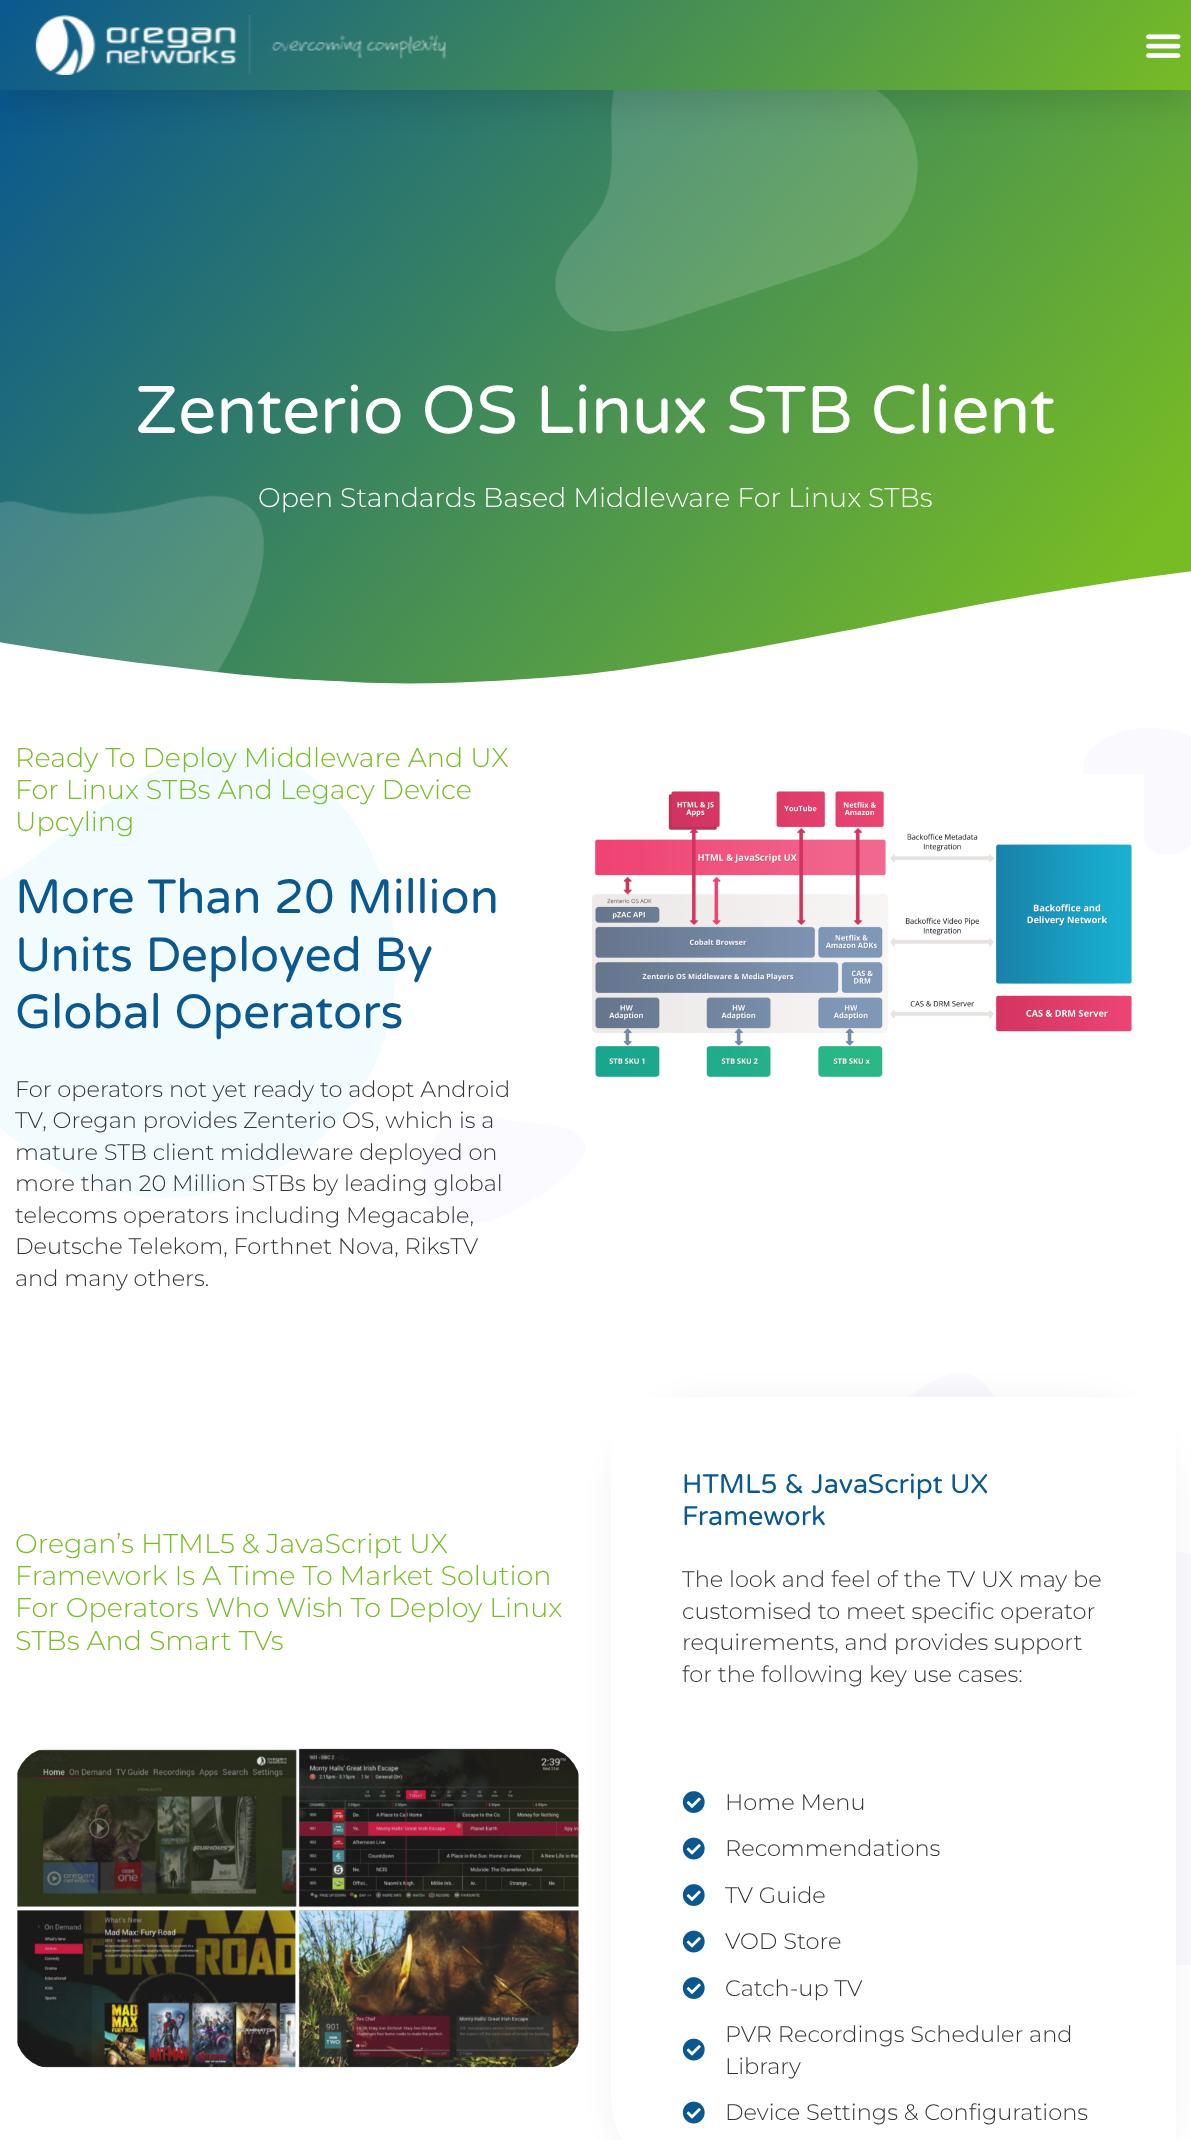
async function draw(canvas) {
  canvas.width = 1191;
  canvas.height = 2140;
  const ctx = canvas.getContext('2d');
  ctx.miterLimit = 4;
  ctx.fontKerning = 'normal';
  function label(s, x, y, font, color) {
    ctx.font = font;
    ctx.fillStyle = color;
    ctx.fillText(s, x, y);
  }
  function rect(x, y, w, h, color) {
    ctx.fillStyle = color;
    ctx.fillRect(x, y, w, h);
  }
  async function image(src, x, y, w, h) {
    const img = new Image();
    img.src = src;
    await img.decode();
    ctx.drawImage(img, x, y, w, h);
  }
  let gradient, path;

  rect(0, 0, 1191, 2140, '#fff');
  gradient = ctx.createLinearGradient(98, -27, 1093, 807);
  gradient.addColorStop(0, '#0a588f');
  gradient.addColorStop(0.9, '#77bc24');
  ctx.fillStyle = gradient;
  ctx.fillRect(0, 90, 1191, 594);
  await image('assets/img3.png', 0, 90, 918, 583);
  ctx.fillStyle = '#0000001a';
  ctx.filter = 'blur(15px)';
  ctx.beginPath();
  ctx.rect(0, 15, 1191, 90);
  ctx.fill();
  ctx.filter = 'none';
  gradient = ctx.createLinearGradient(224, -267, 967, 357);
  gradient.addColorStop(0, '#0a588f');
  gradient.addColorStop(1, '#77bc24');
  ctx.fillStyle = gradient;
  ctx.fillRect(0, 0, 1191, 90);
  await image('assets/img1.png', 35, 15, 411, 60);
  await image('assets/img2.png', 1146, 34, 35, 24);
  label('Zenterio OS Linux STB Client', 135, 433, '67.5px Varela Round', '#fffefe');
  label('Open Standards Based Middleware For Linux STBs', 258, 507, '300 27px Montserrat', '#fffefe');
  ctx.fillStyle = '#fff';
  path = new Path2D('M354 682C424 686 513 681 587 674C661 666 807 639 899 620C1134 572 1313 554 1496 546C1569 543 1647 540 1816 549C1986 558 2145 588 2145 588V692H-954V646C-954 646-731 597-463 600C-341 601-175 610-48 634C18 646 114 661 199 670C283 680 322 680 354 682Z');
  ctx.fill(path);
  await image('assets/img4.png', 0, 728, 1191, 496);
  label('Ready To Deploy Middleware And UX', 15, 767, '300 27px Montserrat', '#77bc24');
  label('For Linux STBs And Legacy Device', 15, 799, '300 27px Montserrat', '#77bc24');
  label('Upcyling', 15, 831, '300 27px Montserrat', '#77bc24');
  label('More Than 20 Million', 15, 913, '48px Varela Round', '#0a588f');
  label('Units Deployed By', 15, 971, '48px Varela Round', '#0a588f');
  label('Global Operators', 15, 1028, '48px Varela Round', '#0a588f');
  label('For operators not yet ready to adopt Android', 15, 1097, '300 22.5px Montserrat', '#353535');
  label('TV, Oregan provides Zenterio OS, which is a', 15, 1128, '300 22.5px Montserrat', '#353535');
  label('mature STB client middleware deployed on', 15, 1160, '300 22.5px Montserrat', '#353535');
  label('more than 20 Million STBs by leading global', 15, 1191, '300 22.5px Montserrat', '#353535');
  label('telecoms operators including Megacable,', 15, 1223, '300 22.5px Montserrat', '#353535');
  label('Deutsche Telekom, Forthnet Nova, RiksTV', 15, 1254, '300 22.5px Montserrat', '#353535');
  label('and many others.', 15, 1286, '300 22.5px Montserrat', '#353535');
  await image('assets/img5.png', 592, 774, 552, 303);
  await image('assets/img6.png', 824, 1373, 367, 592);
  label('Oregan’s HTML5 & JavaScript UX', 15, 1553, '300 27px Montserrat', '#77bc24');
  label('Framework Is A Time To Market Solution', 15, 1585, '300 27px Montserrat', '#77bc24');
  label('For Operators Who Wish To Deploy Linux', 15, 1617, '300 27px Montserrat', '#77bc24');
  label('STBs And Smart TVs', 15, 1650, '300 27px Montserrat', '#77bc24');
  await image('assets/img7.png', 17, 1748, 562, 320);
  ctx.fillStyle = '#0000000d';
  ctx.filter = 'blur(15px)';
  ctx.beginPath();
  ctx.roundRect(611, 1397, 565, 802, 105);
  ctx.fill();
  ctx.filter = 'none';
  ctx.fillStyle = '#fff';
  path = new Path2D('M634 1397H1153C1165.5 1397 1176 1407.5 1176 1420V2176C1176 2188.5 1165.5 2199 1153 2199H716C658 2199 611 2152 611 2094V1420C611 1407.5 621.5 1397 634 1397Z');
  ctx.fill(path);
  label('HTML5 & JavaScript UX', 682, 1493, '27px Varela Round', '#0a588f');
  label('Framework', 682, 1525, '27px Varela Round', '#0a588f');
  label('The look and feel of the TV UX may be', 682, 1587, '300 22.5px Montserrat', '#353535');
  label('customised to meet specific operator', 682, 1619, '300 22.5px Montserrat', '#353535');
  label('requirements, and provides support', 682, 1650, '300 22.5px Montserrat', '#353535');
  label('for the following key use cases:', 682, 1682, '300 22.5px Montserrat', '#353535');
  await image('assets/img8.png', 682, 1791, 23, 22);
  label('Home Menu', 725, 1810, '300 22.5px Montserrat', '#353535');
  await image('assets/img9.png', 682, 1837, 23, 23);
  label('Recommendations', 725, 1856, '300 22.5px Montserrat', '#353535');
  await image('assets/img8.png', 682, 1884, 23, 22);
  label('TV Guide', 725, 1903, '300 22.5px Montserrat', '#353535');
  await image('assets/img9.png', 682, 1930, 23, 23);
  label('VOD Store', 725, 1949, '300 22.5px Montserrat', '#353535');
  await image('assets/img8.png', 682, 1977, 23, 22);
  label('Catch-up TV', 725, 1996, '300 22.5px Montserrat', '#353535');
  await image('assets/img9.png', 682, 2038, 23, 23);
  label('PVR Recordings Scheduler and', 725, 2042, '300 22.5px Montserrat', '#353535');
  label('Library', 725, 2074, '300 22.5px Montserrat', '#353535');
  await image('assets/img9.png', 682, 2101, 23, 23);
  label('Device Settings & Configurations', 725, 2120, '300 22.5px Montserrat', '#353535');
}

draw(document.querySelector('canvas'));
